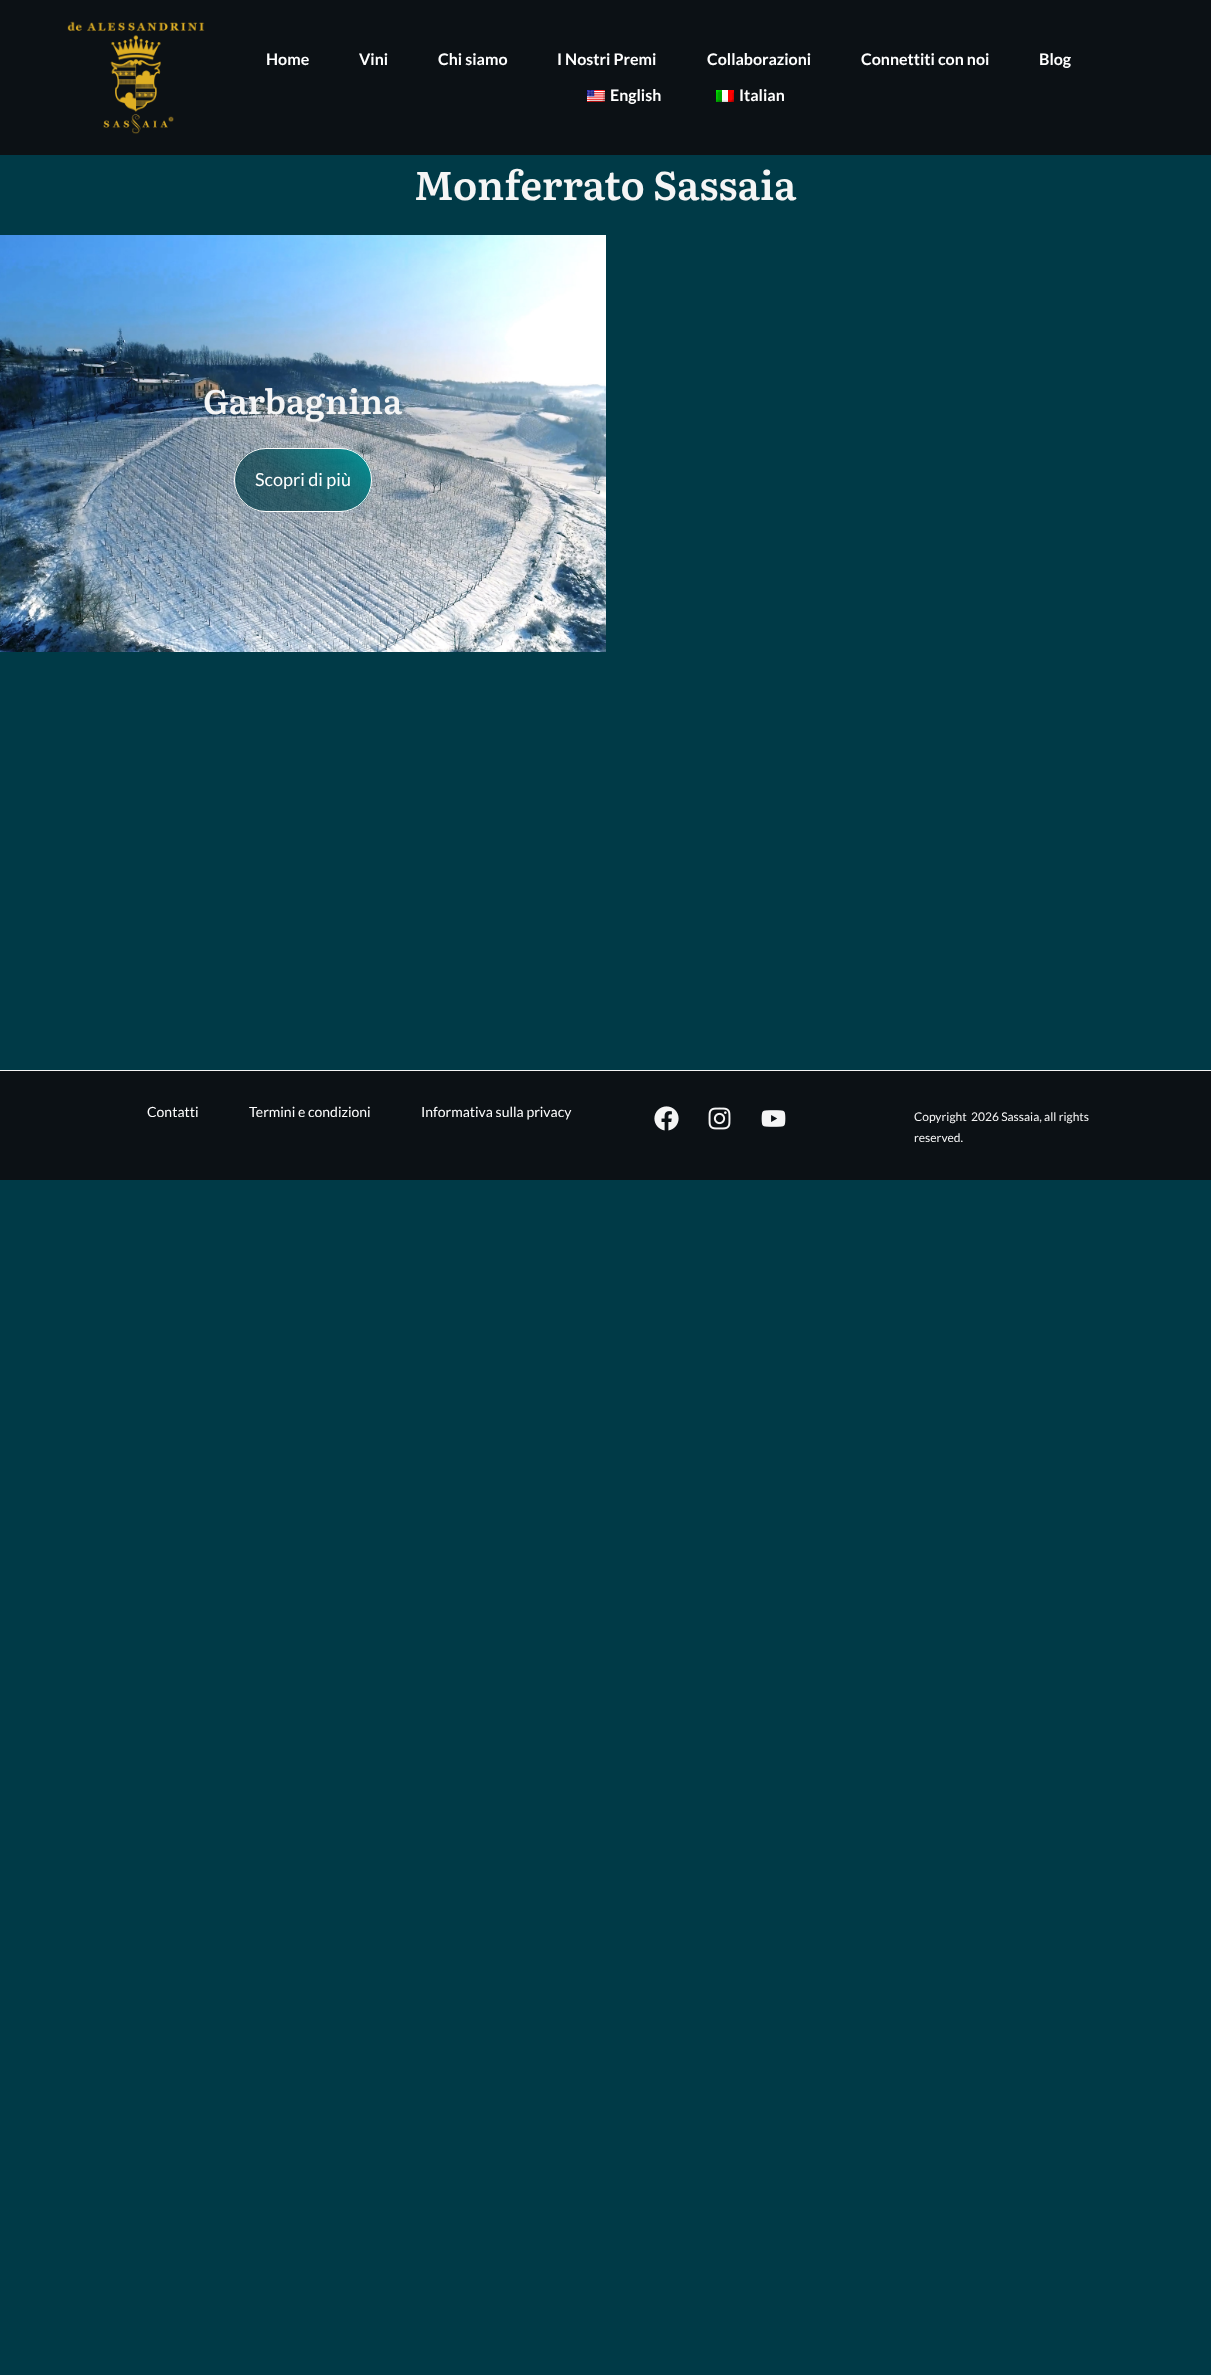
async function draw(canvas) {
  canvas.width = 1211;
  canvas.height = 2375;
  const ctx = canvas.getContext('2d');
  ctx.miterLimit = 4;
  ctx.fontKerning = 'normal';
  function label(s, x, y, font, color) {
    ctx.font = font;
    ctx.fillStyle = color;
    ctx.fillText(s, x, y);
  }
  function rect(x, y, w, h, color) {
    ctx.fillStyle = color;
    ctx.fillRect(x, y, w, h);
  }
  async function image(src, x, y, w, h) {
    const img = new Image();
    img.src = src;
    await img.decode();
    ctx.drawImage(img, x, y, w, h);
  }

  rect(0, 0, 1211, 2375, '#003a47');
  rect(0, 0, 1211, 155, '#0c1115');
  await image('assets/img1.png', 67, 21, 138, 113);
  label('Home', 266, 65, 'bold 16px Lato', '#fff');
  label('Vini', 359, 65, 'bold 16px Lato', '#fff');
  label('Chi siamo', 438, 65, 'bold 16px Lato', '#fff');
  label('I Nostri Premi', 557, 65, 'bold 16px Lato', '#fff');
  label('Collaborazioni', 707, 65, 'bold 16px Lato', '#fff');
  label('Connettiti con noi', 861, 65, 'bold 16px Lato', '#fff');
  label('Blog', 1039, 65, 'bold 16px Lato', '#fff');
  await image('assets/img2.png', 587, 90, 18, 12);
  label('English', 610, 101, 'bold 16px Lato', '#fff');
  await image('assets/img3.png', 716, 90, 18, 12);
  label('Italian', 739, 101, 'bold 16px Lato', '#fff');
  label('Monferrato Sassaia', 414, 200, '600 40px Literata', '#f5f5f5');
  await image('assets/img4.png', 0, 235, 606, 417);
  label('Garbagnina', 203, 414, '600 34px Literata', '#f5f5f5');
  ctx.beginPath();
  ctx.roundRect(234.5, 448.5, 137, 63, 31.5);
  ctx.strokeStyle = '#fff';
  ctx.stroke();
  label('Scopri di più', 255, 486, '18px Lato', '#fff');
  rect(0, 1070, 1211, 1, '#f5f5f5');
  rect(0, 1071, 1211, 109, '#0c1115');
  label('Contatti', 147, 1117, '14px Lato', '#fff');
  label('Termini e condizioni', 249, 1117, '14px Lato', '#fff');
  label('Informativa sulla privacy', 421, 1117, '14px Lato', '#fff');
  await image('assets/img5.png', 654, 1106, 25, 25);
  await image('assets/img6.png', 708, 1107, 23, 23);
  await image('assets/img7.png', 761, 1110, 25, 17);
  label('Copyright', 914, 1121, '12px Lato', '#f5f5f5');
  label('2026 Sassaia, all rights', 971, 1121, '12px Lato', '#f5f5f5');
  label('reserved.', 914, 1142, '12px Lato', '#f5f5f5');
}

draw(document.querySelector('canvas'));
